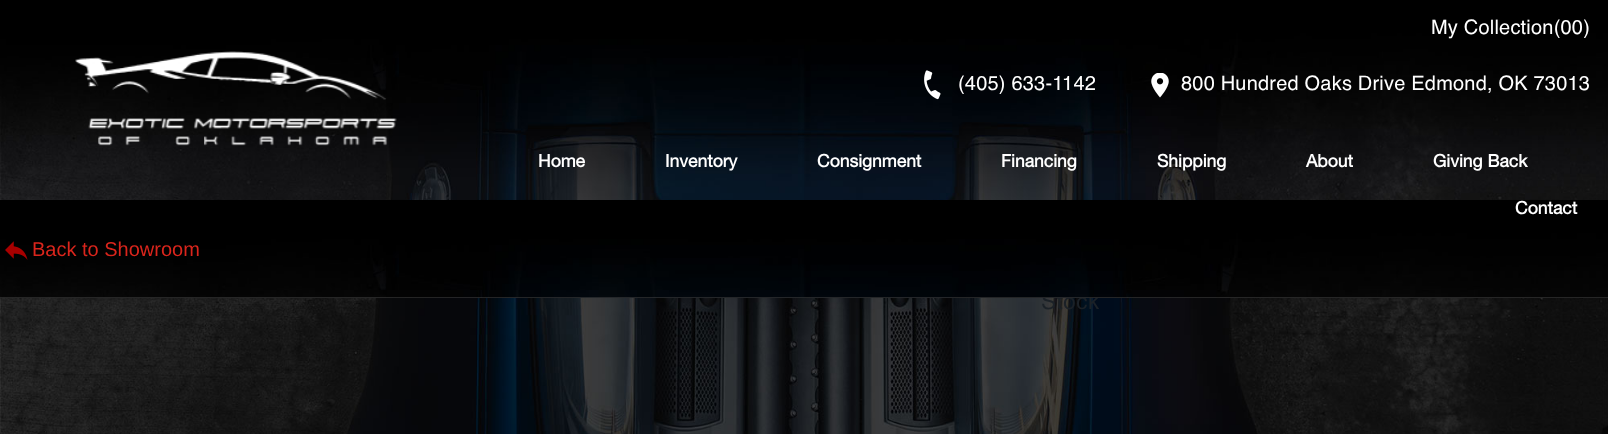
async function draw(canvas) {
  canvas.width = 1608;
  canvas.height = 434;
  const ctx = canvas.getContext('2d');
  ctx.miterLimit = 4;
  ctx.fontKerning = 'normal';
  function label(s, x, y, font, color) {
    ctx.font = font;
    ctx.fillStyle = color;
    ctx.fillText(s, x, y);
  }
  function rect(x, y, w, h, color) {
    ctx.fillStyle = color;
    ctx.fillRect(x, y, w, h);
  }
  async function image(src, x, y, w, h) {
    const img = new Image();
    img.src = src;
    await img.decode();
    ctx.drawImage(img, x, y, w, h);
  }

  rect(0, 0, 1608, 434, '#fff');
  await image('assets/img1.png', 0, 0, 1608, 434);
  ctx.letterSpacing = '0.5px';
  label('Stock', 1041, 309, '22.5px Helvetica', '#1b2127');
  rect(0, 297, 1608, 1, '#434343');
  await image('assets/img2.png', 0, 200, 1608, 98);
  await image('assets/img3.png', 5, 241, 23, 19);
  ctx.letterSpacing = '0px';
  label('Back to Showroom', 32, 256, '20px Liberation Sans', '#da251c');
  await image('assets/img4.png', 75, 51, 322, 95);
  ctx.letterSpacing = '0.2px';
  label('My Collection(00)', 1431, 34, '20px Helvetica', '#fff');
  await image('assets/img5.png', 924, 70, 17, 30);
  label('(405) 633-1142', 958, 90, '20px Helvetica', '#fff');
  await image('assets/img6.png', 1151, 73, 18, 25);
  label('800 Hundred Oaks Drive Edmond, OK 73013', 1181, 90, '20px Helvetica', '#fff');
  ctx.letterSpacing = '0px';
  label('Home', 538, 167, 'bold 17.5px Helvetica Neue', '#fff');
  label('Inventory', 665, 167, 'bold 17.5px Helvetica Neue', '#fff');
  label('Consignment', 817, 167, 'bold 17.5px Helvetica Neue', '#fff');
  label('Financing', 1001, 167, 'bold 17.5px Helvetica Neue', '#fff');
  label('Shipping', 1157, 167, 'bold 17.5px Helvetica Neue', '#fff');
  label('About', 1306, 167, 'bold 17.5px Helvetica Neue', '#fff');
  label('Giving Back', 1433, 167, 'bold 17.5px Helvetica Neue', '#fff');
  label('Contact', 1515, 214, 'bold 17.5px Helvetica Neue', '#fff');
}

draw(document.querySelector('canvas'));
